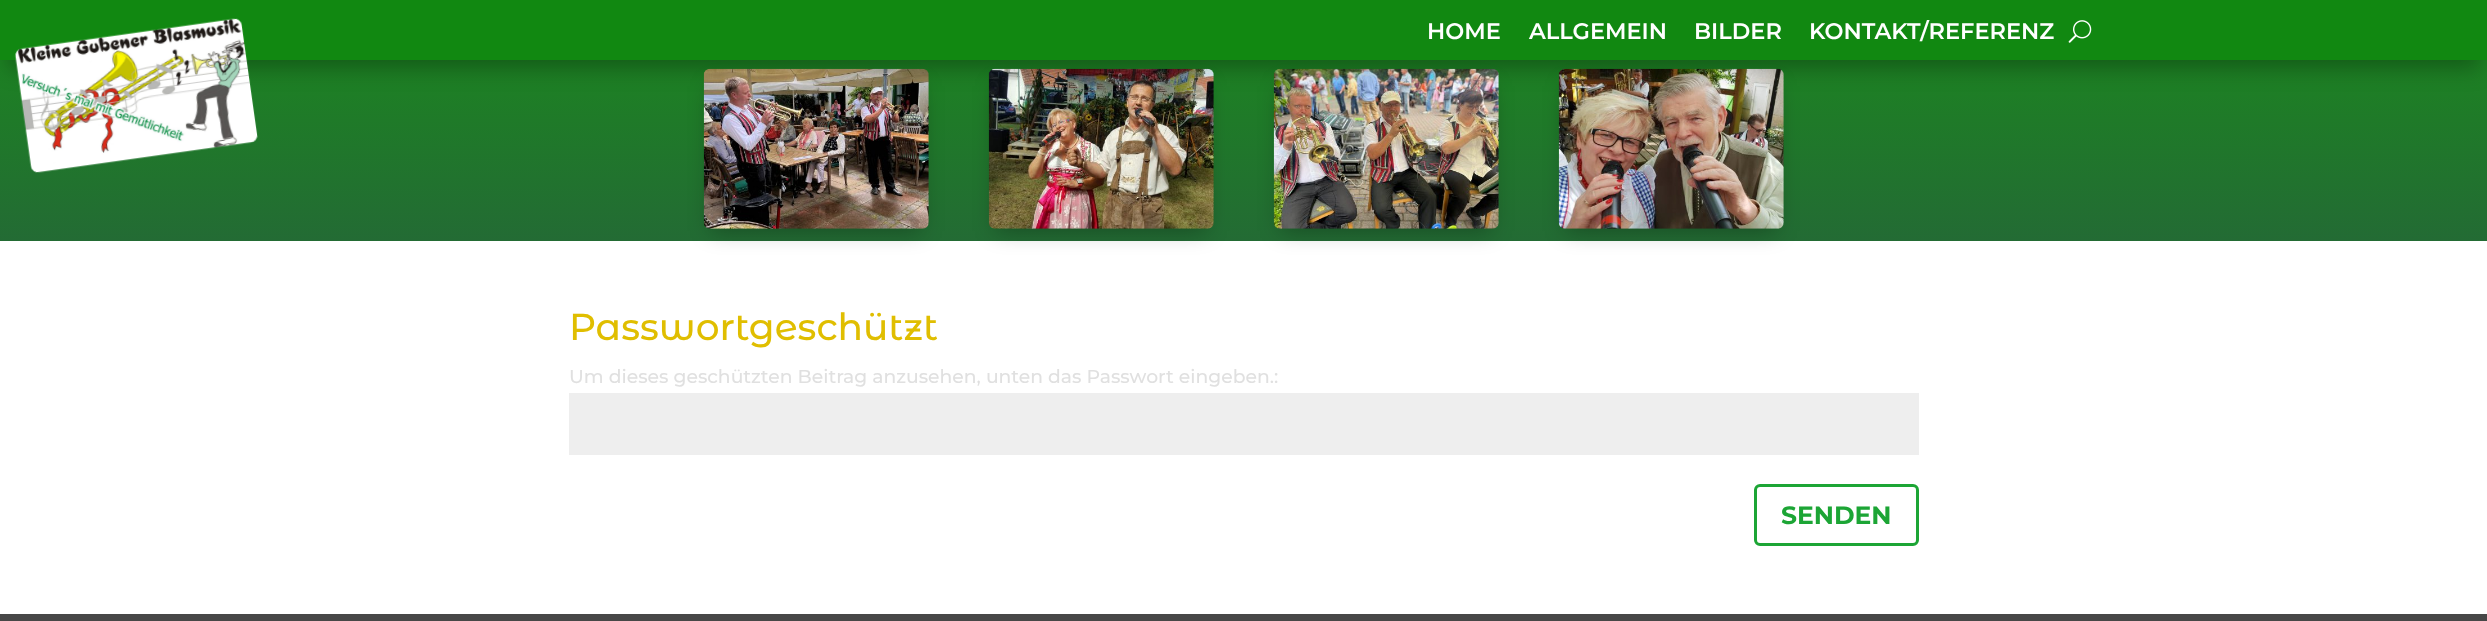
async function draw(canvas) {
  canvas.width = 2487;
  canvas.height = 621;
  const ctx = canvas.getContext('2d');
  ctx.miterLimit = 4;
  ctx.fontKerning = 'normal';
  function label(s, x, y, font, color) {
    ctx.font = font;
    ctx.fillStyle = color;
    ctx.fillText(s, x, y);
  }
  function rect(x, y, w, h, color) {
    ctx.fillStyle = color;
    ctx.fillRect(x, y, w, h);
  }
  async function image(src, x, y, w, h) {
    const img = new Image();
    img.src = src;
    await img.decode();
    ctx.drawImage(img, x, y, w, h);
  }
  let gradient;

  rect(0, 0, 2487, 621, '#fff');
  gradient = ctx.createLinearGradient(1244, 0, 1244, 241);
  gradient.addColorStop(0, '#1b891d');
  gradient.addColorStop(1, '#236b34');
  ctx.fillStyle = gradient;
  ctx.fillRect(0, 60, 2487, 181);
  ctx.fillStyle = '#0000004d';
  ctx.filter = 'blur(11px)';
  ctx.beginPath();
  ctx.rect(711, 86, 210, 145);
  ctx.fill();
  ctx.filter = 'none';
  await image('assets/img3.png', 703, 68, 226, 161);
  ctx.filter = 'blur(11px)';
  ctx.beginPath();
  ctx.rect(996, 86, 210, 145);
  ctx.fill();
  ctx.filter = 'none';
  await image('assets/img4.png', 988, 68, 226, 161);
  ctx.filter = 'blur(11px)';
  ctx.beginPath();
  ctx.rect(1281, 86, 210, 145);
  ctx.fill();
  ctx.filter = 'none';
  await image('assets/img5.png', 1273, 68, 226, 161);
  ctx.filter = 'blur(11px)';
  ctx.beginPath();
  ctx.rect(1566, 86, 210, 145);
  ctx.fill();
  ctx.filter = 'none';
  await image('assets/img6.png', 1558, 68, 226, 161);
  ctx.filter = 'blur(11px)';
  ctx.beginPath();
  ctx.rect(8, 23, 2472, 45);
  ctx.fill();
  ctx.filter = 'none';
  rect(0, 0, 2487, 60, '#181');
  await image('assets/img1.png', 14, 18, 244, 155);
  label('HOME', 1427, 39, '600 22.5px Montserrat', '#fff');
  label('ALLGEMEIN', 1529, 39, '600 22.5px Montserrat', '#fff');
  label('BILDER', 1694, 39, '600 22.5px Montserrat', '#fff');
  label('KONTAKT/REFERENZ', 1809, 39, '600 22.5px Montserrat', '#fff');
  await image('assets/img2.png', 2068, 20, 24, 23);
  label('Passwortgeschützt', 569, 340, '500 37.5px Montserrat Alternates', '#e0be00');
  label('Um dieses geschützten Beitrag anzusehen, unten das Passwort eingeben.:', 569, 383, '500 18.75px Montserrat', '#e0e0e0');
  rect(569, 393, 1350, 62, '#eee');
  ctx.beginPath();
  ctx.roundRect(1755.5, 485.5, 162, 59, 4.5);
  ctx.strokeStyle = '#1ca535';
  ctx.lineWidth = 3;
  ctx.stroke();
  label('SENDEN', 1781, 524, 'bold 25px Montserrat', '#1ca535');
  rect(0, 614, 2487, 7, '#474747');
}

draw(document.querySelector('canvas'));
